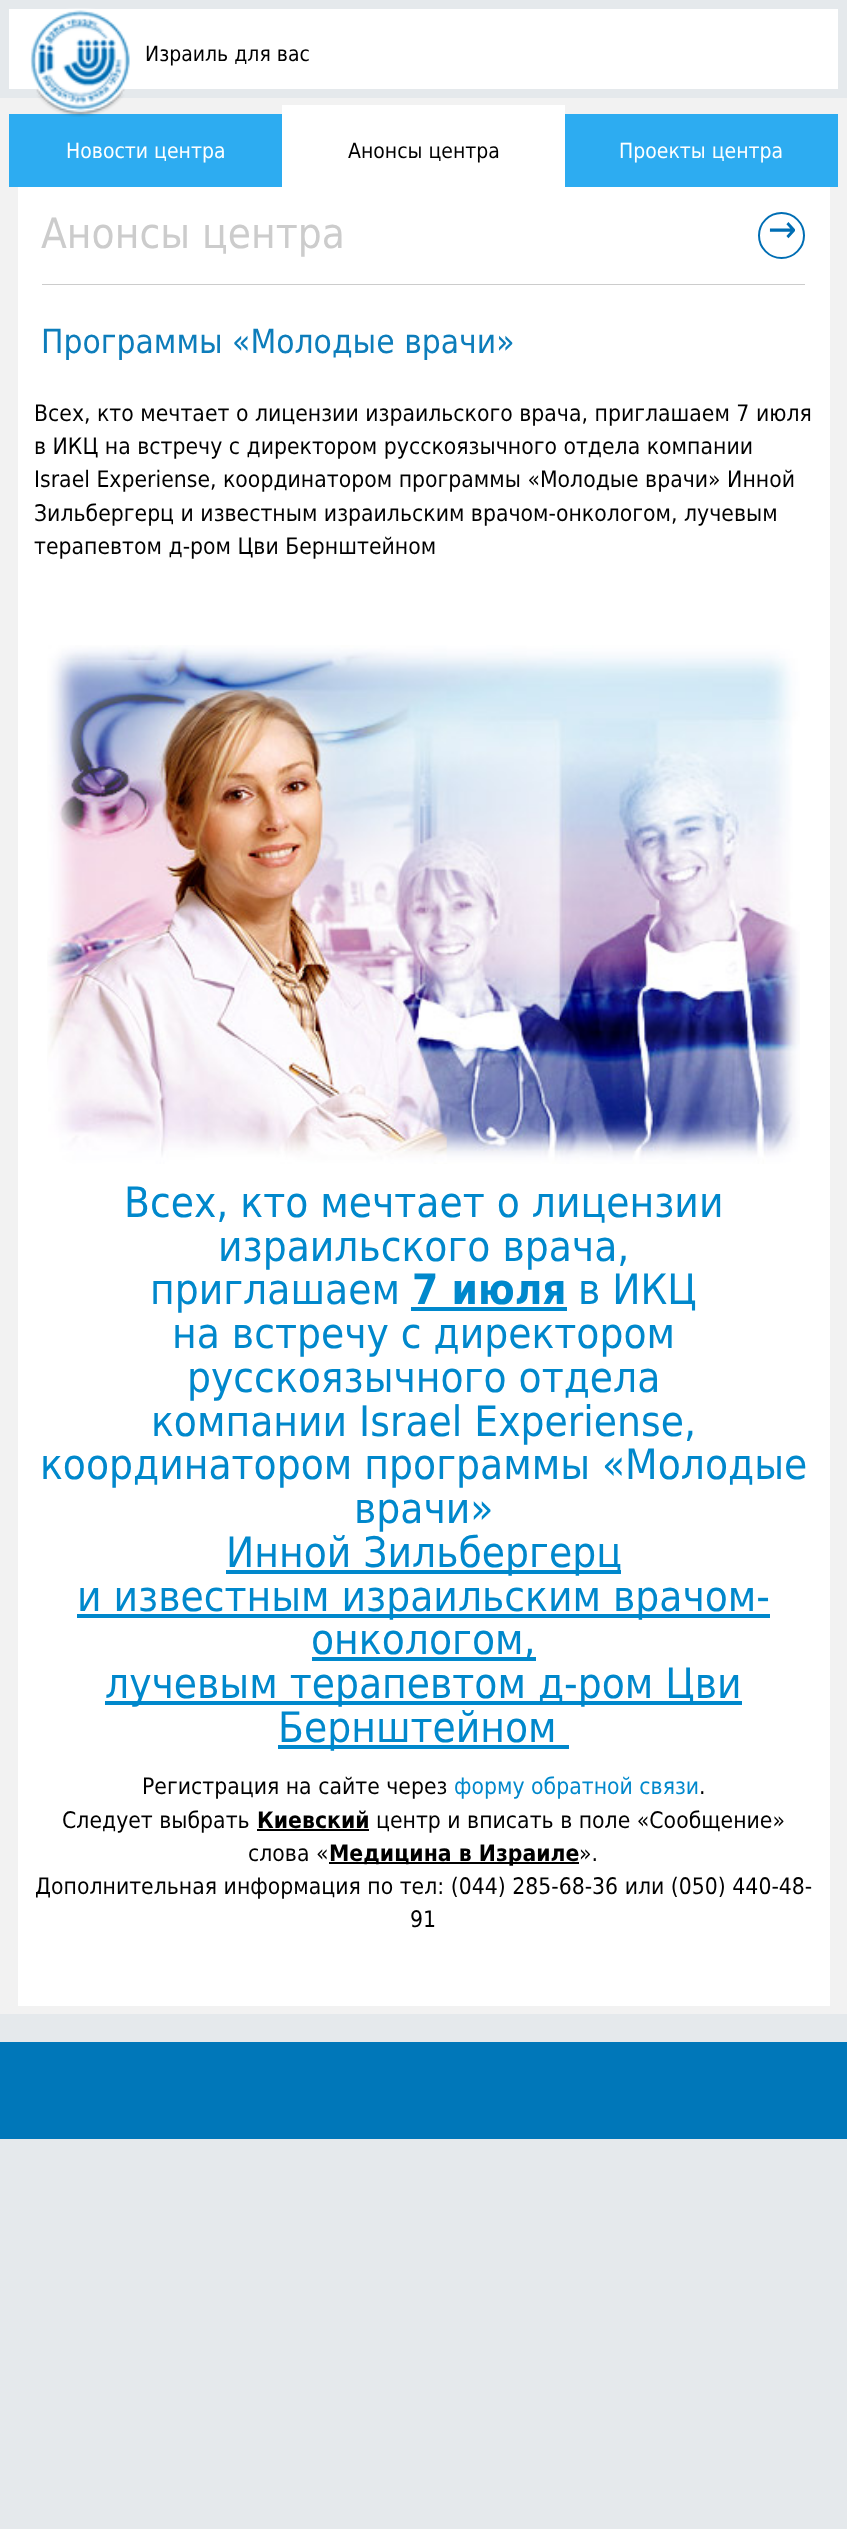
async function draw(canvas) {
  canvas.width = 847;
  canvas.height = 2529;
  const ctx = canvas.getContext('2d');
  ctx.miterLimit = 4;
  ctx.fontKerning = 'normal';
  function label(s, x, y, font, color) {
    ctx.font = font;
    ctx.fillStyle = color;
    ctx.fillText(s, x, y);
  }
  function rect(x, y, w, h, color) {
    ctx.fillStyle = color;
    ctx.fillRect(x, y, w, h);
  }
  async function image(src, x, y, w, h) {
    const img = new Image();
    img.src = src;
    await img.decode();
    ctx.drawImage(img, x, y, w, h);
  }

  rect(0, 0, 847, 2529, '#e5e9ec');
  rect(9, 9, 829, 80, '#fff');
  rect(0, 98, 847, 1916, '#f2f2f2');
  rect(9, 114, 273, 73, '#2dacf1');
  await image('assets/img1.png', 30, 8, 100, 109);
  label('Израиль для вас', 145, 61, '21px DejaVu Sans', '#000');
  label('Новости центра', 66, 158, '21px DejaVu Sans', '#fff');
  rect(282, 105, 283, 82, '#fff');
  label('Анонсы центра', 348, 158, '21px DejaVu Sans', '#000');
  rect(565, 114, 273, 73, '#2dacf1');
  label('Проекты центра', 619, 158, '21px DejaVu Sans', '#fff');
  rect(18, 187, 812, 1819, '#fff');
  rect(42, 284, 763, 1, '#ccc');
  label('Анонсы центра', 41, 248, '42px DejaVu Sans', '#ccc');
  ctx.beginPath();
  ctx.arc(781.5, 235.5, 22.5, 0, 2 * Math.PI);
  ctx.strokeStyle = '#006eb4';
  ctx.lineWidth = 2;
  ctx.stroke();
  label('→', 768, 242, '38px DejaVu Sans', '#006eb4');
  label('Программы «Молодые врачи»', 41, 353, '33.25px DejaVu Sans', '#0d7dbb');
  label('Всех, кто мечтает о лицензии израильского врача, приглашаем 7 июля', 34, 421, '22.75px DejaVu Sans', '#000');
  label('в ИКЦ на встречу с директором русскоязычного отдела компании', 34, 454, '22.75px DejaVu Sans', '#000');
  label('Israel Experiense, координатором программы «Молодые врачи» Инной', 34, 487, '22.75px DejaVu Sans', '#000');
  label('Зильбергерц и известным израильским врачом-онкологом, лучевым', 34, 521, '22.75px DejaVu Sans', '#000');
  label('терапевтом д-ром Цви Бернштейном', 34, 554, '22.75px DejaVu Sans', '#000');
  await image('assets/img2.png', 47, 645, 753, 519);
  label('Всех, кто мечтает о лицензии', 124, 1217, '42px DejaVu Sans', '#08c');
  label('израильского врача,', 218, 1261, '42px DejaVu Sans', '#08c');
  label('приглашаем', 150, 1304, '42px DejaVu Sans', '#08c');
  label('7 июля', 412, 1304, 'bold 42px DejaVu Sans', '#08c');
  rect(411, 1307, 156, 4, '#08c');
  label('в ИКЦ', 578, 1304, '42px DejaVu Sans', '#08c');
  label('на встречу с директором', 172, 1348, '42px DejaVu Sans', '#08c');
  label('русскоязычного отдела', 187, 1392, '42px DejaVu Sans', '#08c');
  label('компании Israel Experiense,', 151, 1436, '42px DejaVu Sans', '#08c');
  label('координатором программы «Молодые', 40, 1479, '42px DejaVu Sans', '#08c');
  label('врачи»', 354, 1523, '42px DejaVu Sans', '#08c');
  rect(226, 1570, 395, 4, '#08c');
  label('Инной Зильбергерц', 226, 1567, '42px DejaVu Sans', '#08c');
  rect(77, 1614, 693, 4, '#08c');
  label('и известным израильским врачом-', 77, 1611, '42px DejaVu Sans', '#08c');
  rect(312, 1657, 224, 4, '#08c');
  label('онкологом,', 311, 1654, '42px DejaVu Sans', '#08c');
  rect(105, 1701, 637, 4, '#08c');
  label('лучевым терапевтом д-ром Цви', 105, 1698, '42px DejaVu Sans', '#08c');
  rect(278, 1745, 291, 4, '#08c');
  label('Бернштейном', 278, 1742, '42px DejaVu Sans', '#08c');
  label('Регистрация на сайте через', 142, 1794, '22.75px DejaVu Sans', '#000');
  label('форму обратной связи', 454, 1794, '22.75px DejaVu Sans', '#08c');
  label('.', 699, 1794, '22.75px DejaVu Sans', '#000');
  label('Следует выбрать', 62, 1828, '22.75px DejaVu Sans', '#000');
  label('Киевский', 257, 1828, 'bold 22.75px DejaVu Sans', '#000');
  rect(257, 1829, 112, 2, '#000');
  label('центр и вписать в поле «Сообщение»', 376, 1828, '22.75px DejaVu Sans', '#000');
  label('слова «', 248, 1861, '22.75px DejaVu Sans', '#000');
  rect(329, 1862, 250, 2, '#000');
  label('Медицина в Израиле', 329, 1861, 'bold 22.75px DejaVu Sans', '#000');
  label('».', 579, 1861, '22.75px DejaVu Sans', '#000');
  label('Дополнительная информация по тел: (044) 285-68-36 или (050) 440-48-', 35, 1894, '22.75px DejaVu Sans', '#000');
  label('91', 410, 1927, '22.75px DejaVu Sans', '#000');
  rect(0, 2042, 847, 97, '#0077b9');
}

draw(document.querySelector('canvas'));
